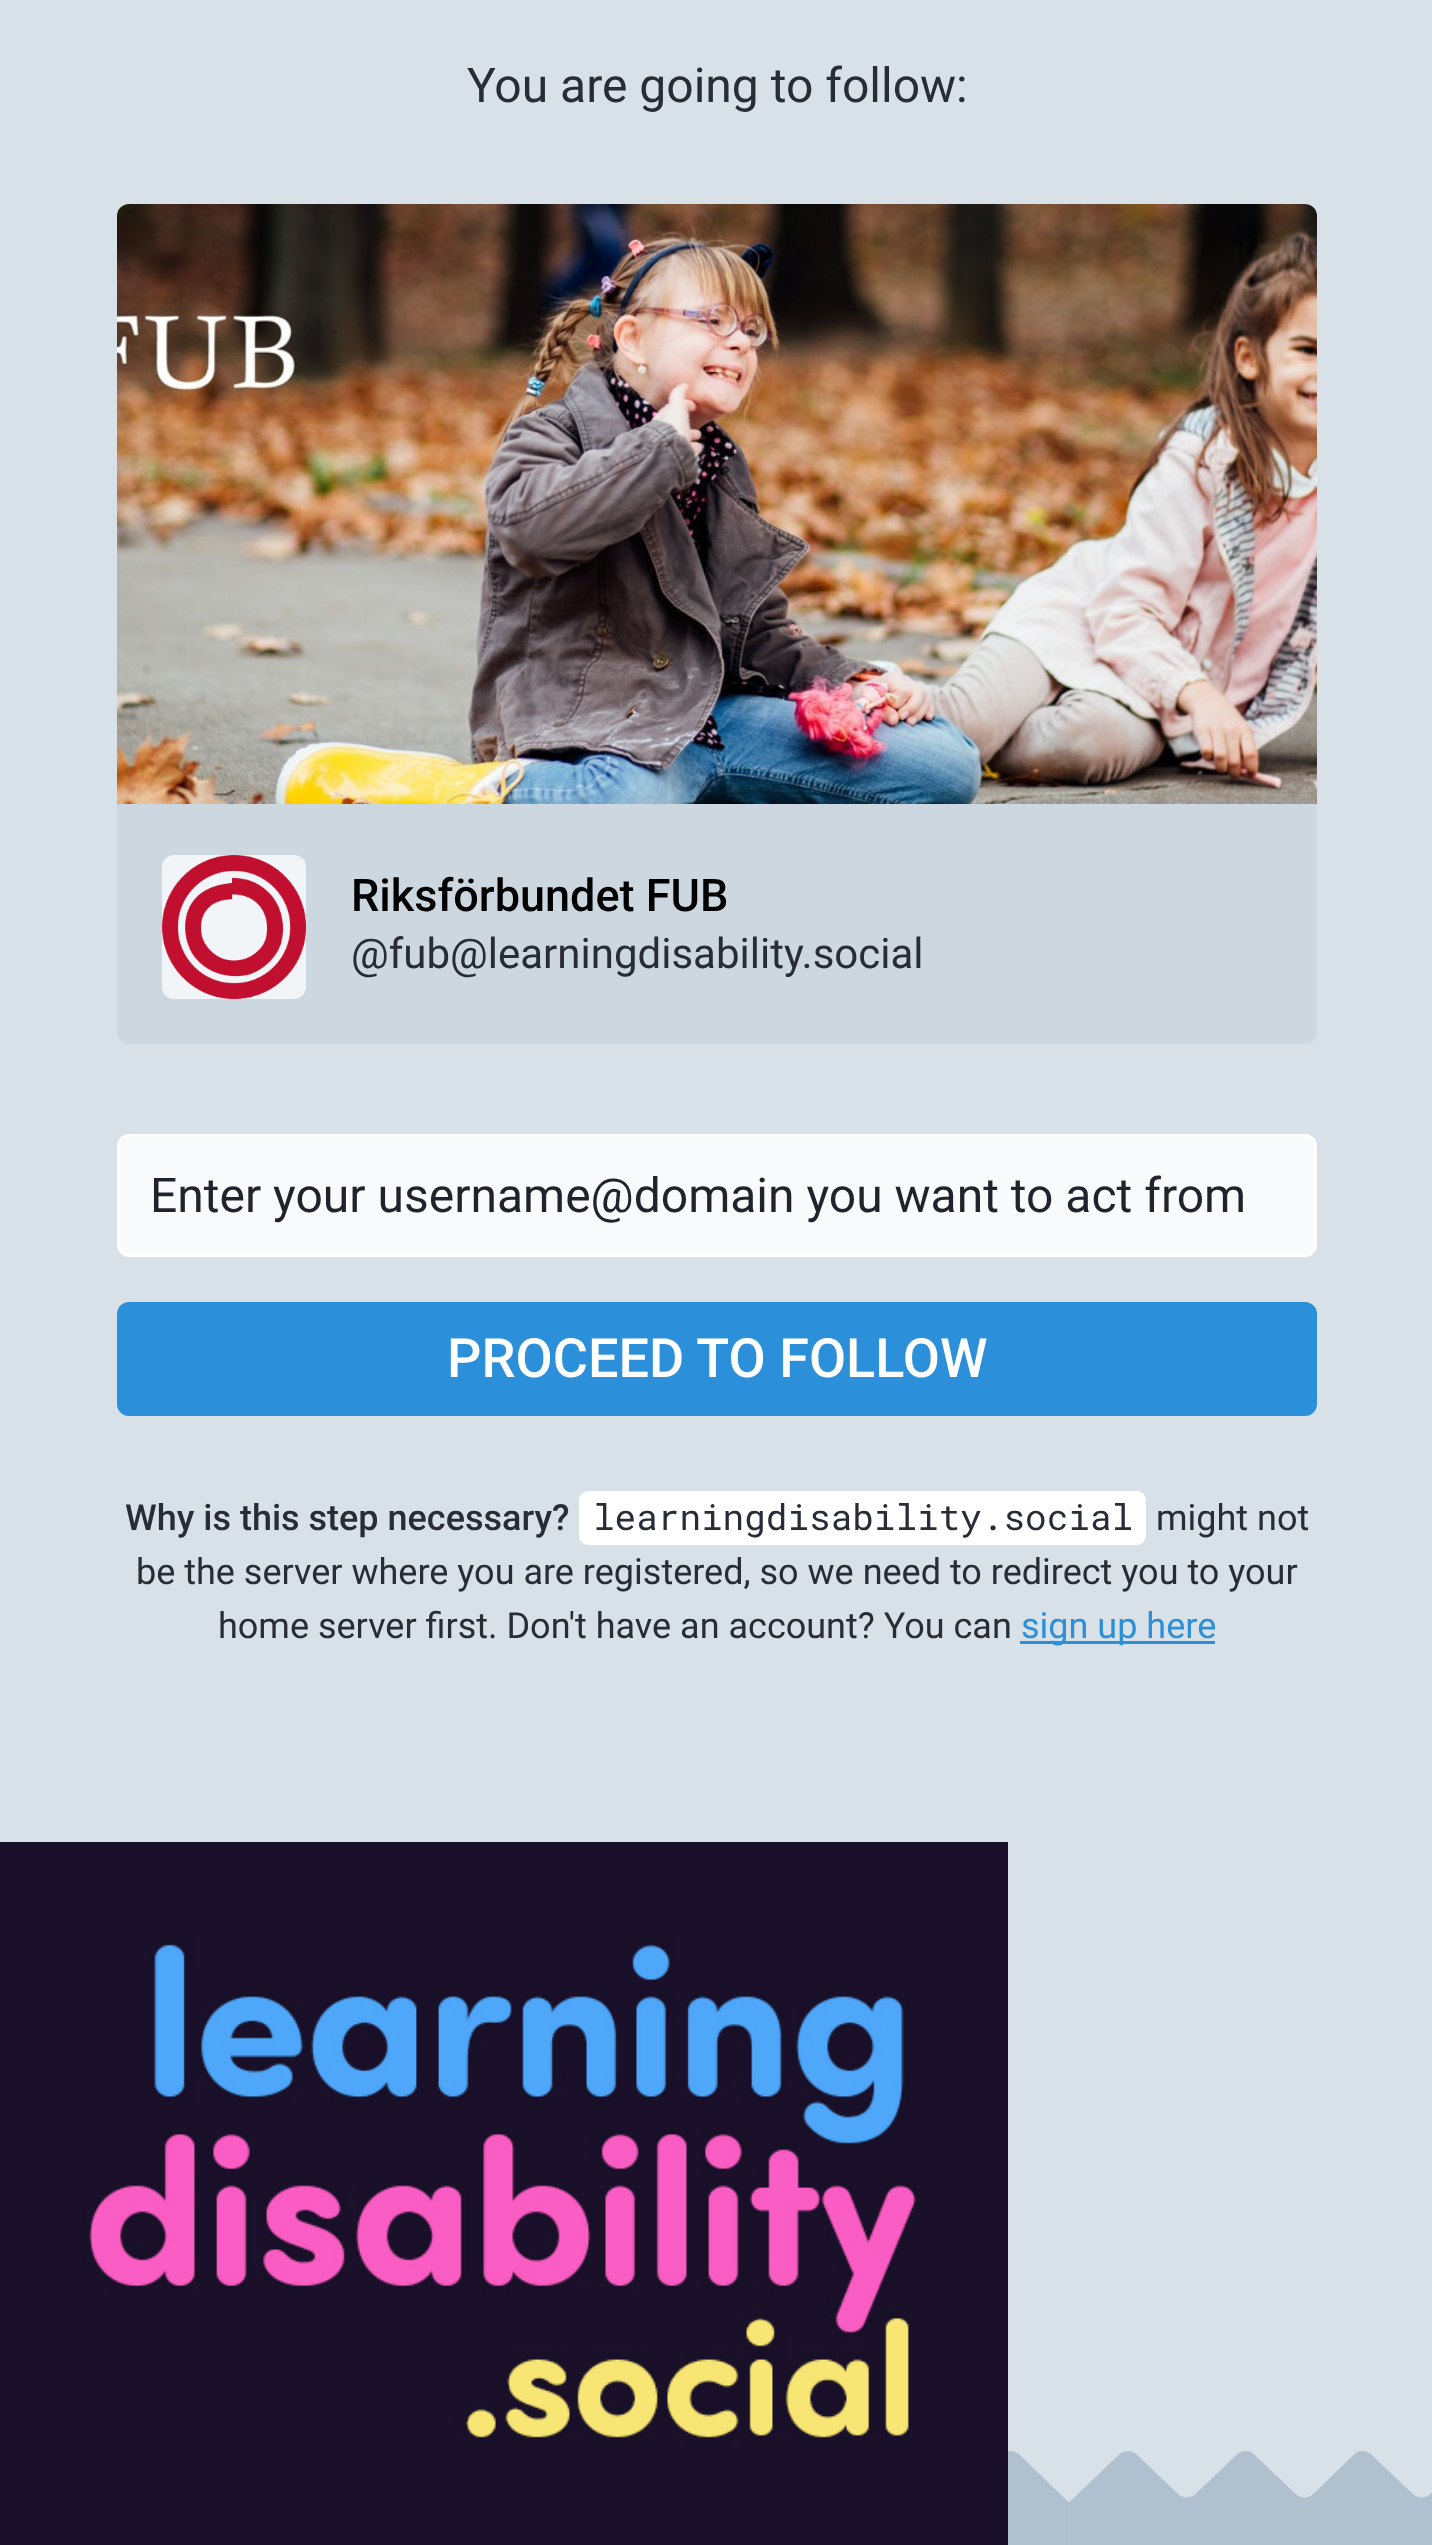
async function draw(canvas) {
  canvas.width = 1432;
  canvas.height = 2545;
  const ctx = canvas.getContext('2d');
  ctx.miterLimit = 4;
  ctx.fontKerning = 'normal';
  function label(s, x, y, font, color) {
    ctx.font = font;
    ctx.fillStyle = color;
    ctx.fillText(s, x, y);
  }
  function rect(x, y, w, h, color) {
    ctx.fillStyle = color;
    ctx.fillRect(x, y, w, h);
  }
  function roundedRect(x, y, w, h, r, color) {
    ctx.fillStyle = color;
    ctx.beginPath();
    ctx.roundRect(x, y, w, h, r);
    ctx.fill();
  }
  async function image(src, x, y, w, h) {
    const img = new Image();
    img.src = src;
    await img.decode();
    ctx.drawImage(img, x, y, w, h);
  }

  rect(0, 0, 1432, 2545, '#d9e1e8');
  await image('assets/img1.png', 1008, 2451, 424, 94);
  label('You are going to follow:', 467, 102, '48px Roboto', '#282c37');
  await image('assets/img2.png', 117, 204, 1200, 600);
  ctx.fillStyle = '#ccd7e0';
  ctx.beginPath();
  ctx.roundRect(117, 804, 1200, 240, [0, 0, 12, 12]);
  ctx.fill();
  roundedRect(162, 855, 144, 144, 12, '#f2f5f7');
  await image('assets/img3.png', 162, 855, 144, 144);
  label('Riksförbundet FUB', 351, 911, '500 45px Roboto', '#000');
  label('@fub@learningdisability.social', 351, 968, '42px Roboto', '#282c37');
  ctx.fillStyle = '#f9fafb';
  ctx.beginPath();
  ctx.roundRect(118.5, 1135.5, 1197, 120, 10.5);
  ctx.fill();
  ctx.strokeStyle = '#fff';
  ctx.lineWidth = 3;
  ctx.stroke();
  label('Enter your username@domain you want to act from', 150, 1212, '48px Roboto', '#1f232b');
  roundedRect(117, 1302, 1200, 114, 12, '#2b90d9');
  label('PROCEED TO FOLLOW', 447, 1377, '500 54px Roboto', '#fff');
  label('Why is this step necessary?', 125, 1530, '500 36px Roboto', '#282c37');
  roundedRect(579, 1491, 567, 54, 9, '#fff');
  label('learningdisability.social', 593, 1530, '36px Roboto Mono', '#282c37');
  label('might not', 1156, 1530, '36px Roboto', '#282c37');
  label('be the server where you are registered, so we need to redirect you to your', 136, 1584, '36px Roboto', '#282c37');
  label('home server first. Don\'t have an account? You can', 218, 1638, '36px Roboto', '#282c37');
  rect(1020, 1641, 195, 3, '#2b90d9');
  label('sign up here', 1021, 1638, '36px Roboto', '#2b90d9');
  await image('assets/img4.png', 0, 1842, 1008, 703);
}

draw(document.querySelector('canvas'));
